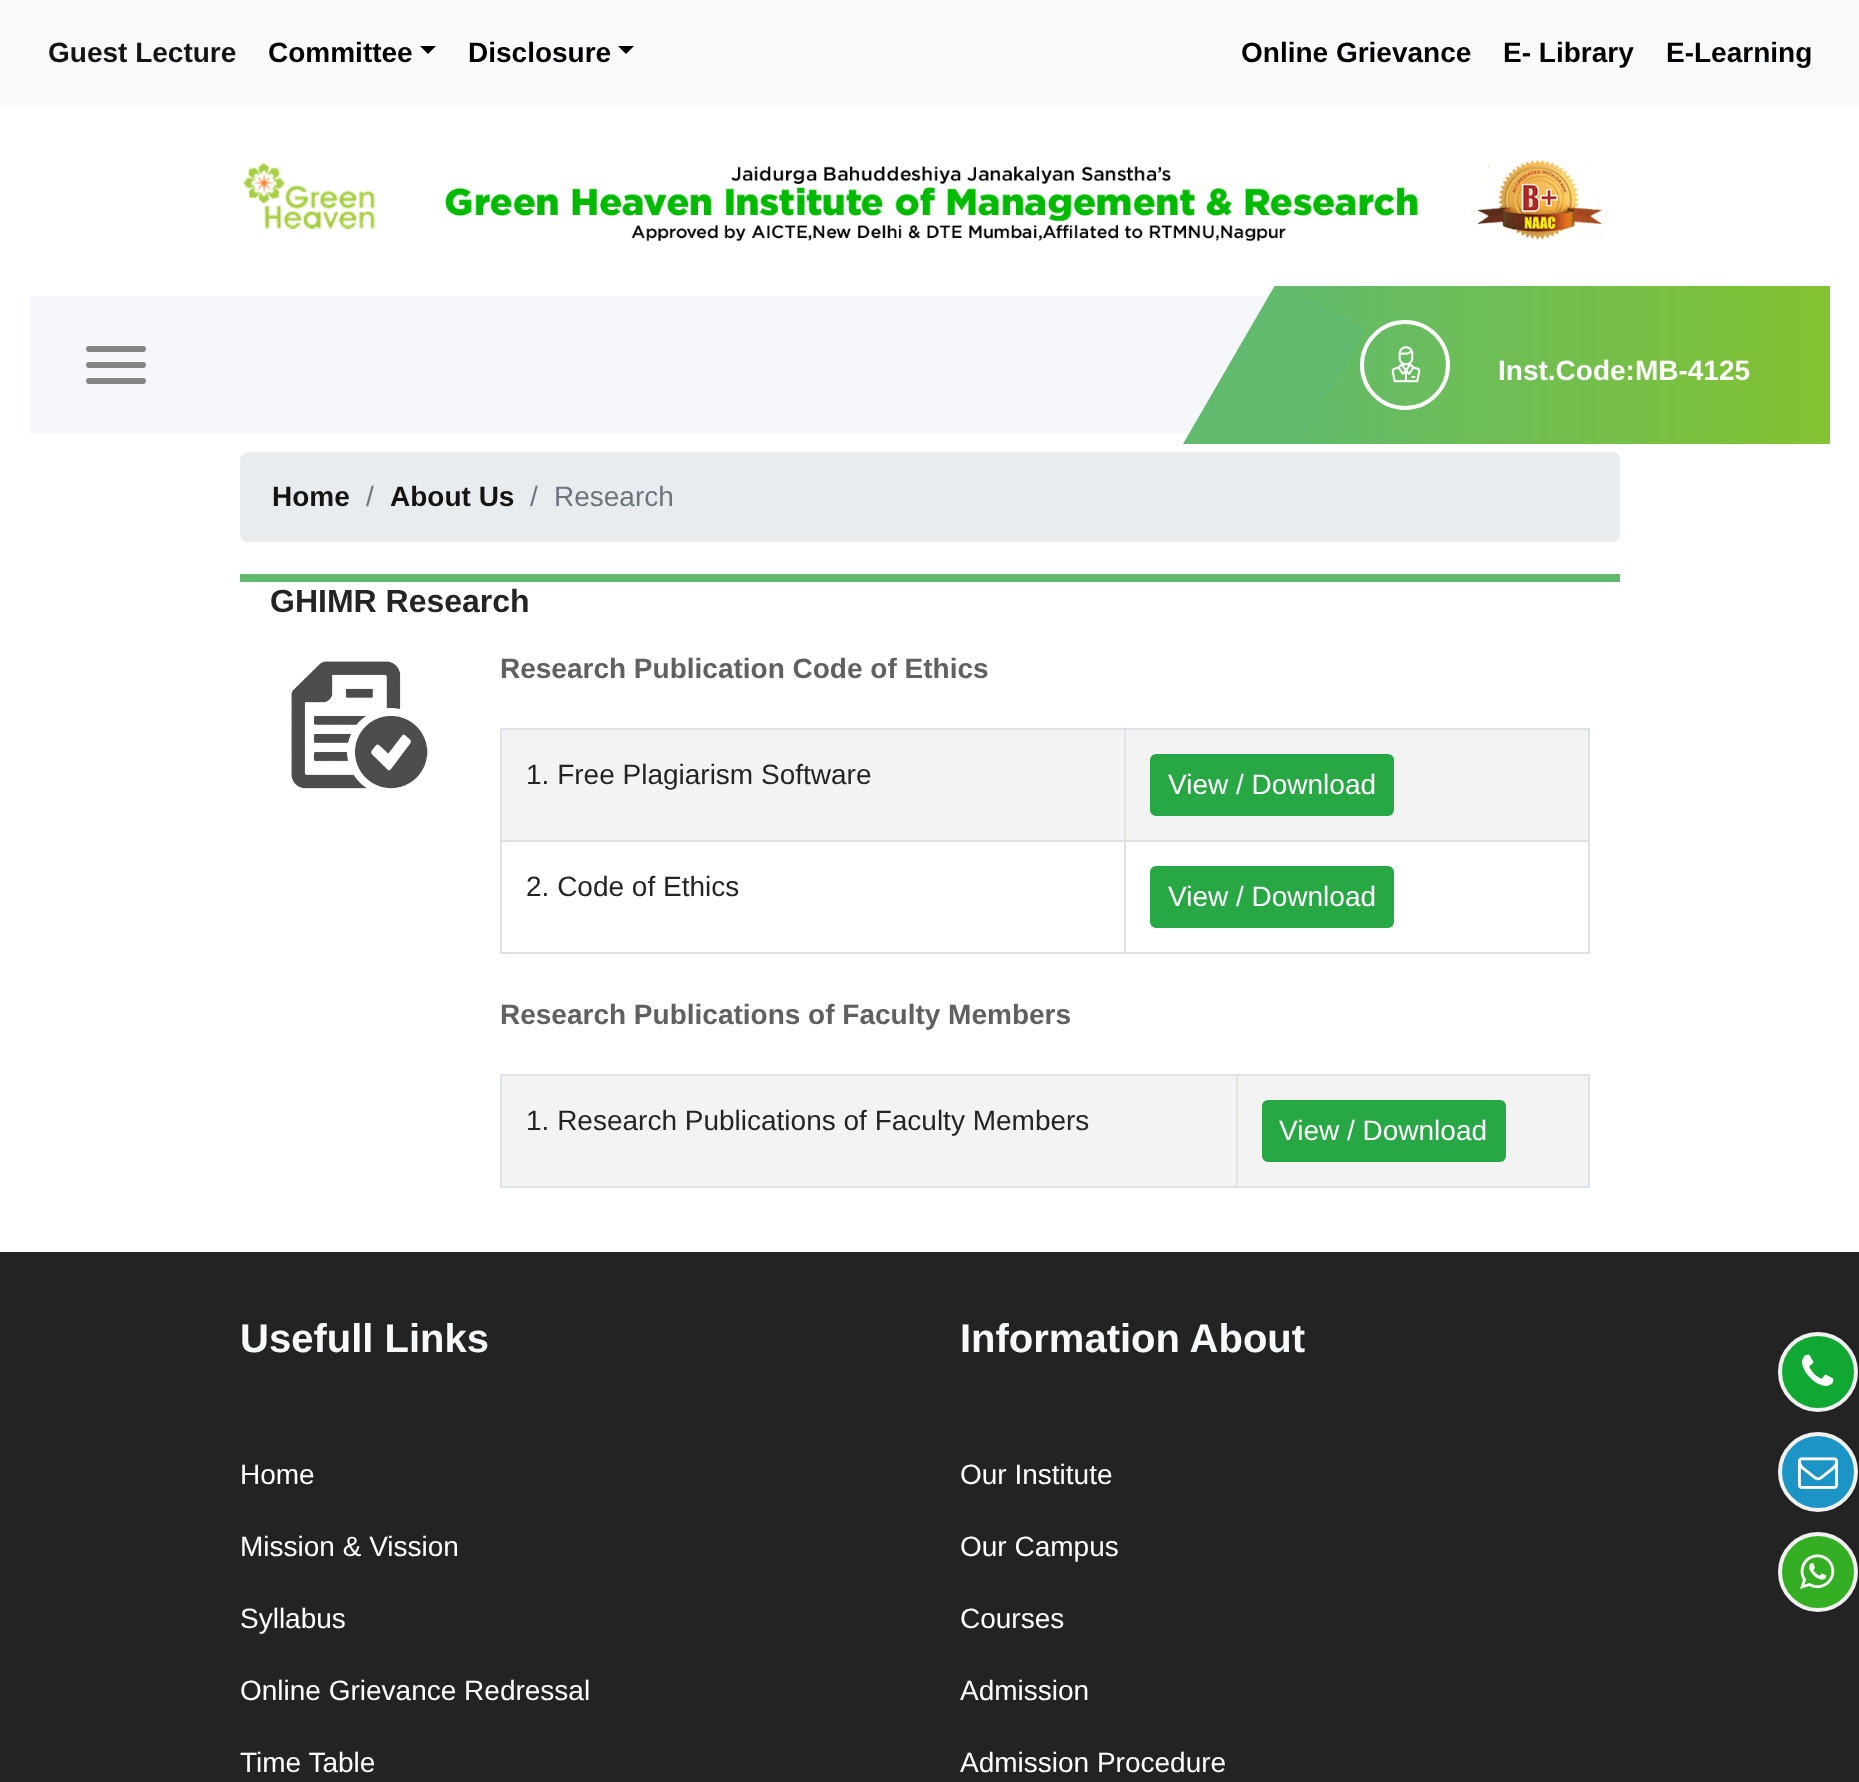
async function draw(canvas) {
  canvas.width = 1859;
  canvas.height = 1782;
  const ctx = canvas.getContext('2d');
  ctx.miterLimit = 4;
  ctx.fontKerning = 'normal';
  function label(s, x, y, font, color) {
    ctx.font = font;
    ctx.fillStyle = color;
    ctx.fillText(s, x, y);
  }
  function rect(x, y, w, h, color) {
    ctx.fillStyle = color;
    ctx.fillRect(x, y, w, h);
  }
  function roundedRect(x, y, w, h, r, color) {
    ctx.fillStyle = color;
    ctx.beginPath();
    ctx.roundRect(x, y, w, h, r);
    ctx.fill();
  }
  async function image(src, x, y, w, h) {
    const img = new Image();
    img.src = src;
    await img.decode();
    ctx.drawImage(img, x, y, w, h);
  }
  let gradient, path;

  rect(0, 0, 1859, 1782, '#fff');
  rect(0, 0, 1859, 106, '#f8f9fa');
  label('Guest Lecture', 48, 62, 'bold 28px Liberation Sans', '#141414');
  label('Committee', 268, 62, 'bold 28px Liberation Sans', '#000');
  path = new Path2D('M420 46H436L428 54Z');
  ctx.fill(path);
  label('Disclosure', 468, 62, 'bold 28px Liberation Sans', '#000');
  path = new Path2D('M618 46H634L626 54Z');
  ctx.fill(path);
  label('Online Grievance', 1241, 62, 'bold 28px Liberation Sans', '#000');
  label('E- Library', 1503, 62, 'bold 28px Liberation Sans', '#000');
  label('E-Learning', 1666, 62, 'bold 28px Liberation Sans', '#000');
  await image('assets/img1.png', 242, 160, 1372, 82);
  rect(30, 296, 1239, 138, '#f5f7fa');
  roundedRect(86, 346, 60, 6, 3, '#858585');
  roundedRect(86, 362, 60, 6, 3, '#858585');
  roundedRect(86, 378, 60, 6, 3, '#858585');
  gradient = ctx.createLinearGradient(1280, 365, 1830, 365);
  gradient.addColorStop(0, '#61ba6d');
  gradient.addColorStop(1, '#83c331');
  ctx.fillStyle = gradient;
  ctx.fillRect(1288, 286, 542, 158);
  ctx.beginPath();
  ctx.arc(1405, 365, 43, 0, 2 * Math.PI);
  ctx.strokeStyle = '#fff';
  ctx.lineWidth = 4;
  ctx.stroke();
  ctx.save();
  ctx.beginPath();
  ctx.rect(1120, 286, 710, 158);
  ctx.clip();
  ctx.fillStyle = '#61ba6d';
  path = new Path2D('M1278 280L1365 330L1270 494L1183 444Z');
  ctx.fill(path);
  ctx.restore();
  await image('assets/img2.png', 1391, 346, 30, 37);
  label('Inst.Code:MB-4125', 1498, 380, 'bold 28px Liberation Sans', '#fff');
  roundedRect(240, 452, 1380, 90, 8, '#e9ecef');
  label('Home', 272, 506, 'bold 28px Liberation Sans', '#141414');
  label('/', 366, 506, '28px Liberation Sans', '#6c757d');
  label('About Us', 390, 506, 'bold 28px Liberation Sans', '#141414');
  label('/', 530, 506, '28px Liberation Sans', '#6c757d');
  label('Research', 554, 506, '28px Liberation Sans', '#6c757d');
  rect(240, 574, 1380, 8, '#61ba6d');
  label('GHIMR Research', 270, 612, 'bold 32px Liberation Sans', '#242424');
  await image('assets/img3.png', 291, 661, 137, 128);
  label('Research Publication Code of Ethics', 500, 678, 'bold 28px Liberation Sans', '#606060');
  rect(502, 730, 1086, 110, '#f3f3f3');
  rect(1124, 728, 466, 2, '#dee2e6');
  rect(1124, 840, 466, 2, '#dee2e6');
  rect(1588, 840, 2, 114, '#dee2e6');
  rect(1124, 952, 466, 2, '#dee2e6');
  rect(1124, 840, 2, 114, '#dee2e6');
  rect(500, 840, 626, 2, '#dee2e6');
  rect(1124, 728, 2, 114, '#dee2e6');
  rect(500, 728, 626, 2, '#dee2e6');
  rect(500, 952, 626, 2, '#dee2e6');
  rect(500, 840, 2, 114, '#dee2e6');
  rect(500, 728, 2, 114, '#dee2e6');
  label('1. Free Plagiarism Software', 526, 784, '28px Liberation Sans', '#242424');
  rect(1588, 728, 2, 114, '#dee2e6');
  ctx.fillStyle = '#28a745';
  ctx.beginPath();
  ctx.roundRect(1151, 755, 242, 60, 5);
  ctx.fill();
  ctx.strokeStyle = '#28a745';
  ctx.lineWidth = 2;
  ctx.stroke();
  label('View / Download', 1168, 794, '28px Liberation Sans', '#fff');
  label('2. Code of Ethics', 526, 896, '28px Liberation Sans', '#242424');
  ctx.fillStyle = '#28a745';
  ctx.beginPath();
  ctx.roundRect(1151, 867, 242, 60, 5);
  ctx.fill();
  ctx.stroke();
  label('View / Download', 1168, 906, '28px Liberation Sans', '#fff');
  label('Research Publications of Faculty Members', 500, 1024, 'bold 28px Liberation Sans', '#606060');
  rect(502, 1076, 1086, 110, '#f3f3f3');
  rect(1236, 1074, 354, 2, '#dee2e6');
  rect(1588, 1074, 2, 114, '#dee2e6');
  rect(1236, 1186, 354, 2, '#dee2e6');
  rect(1236, 1074, 2, 114, '#dee2e6');
  rect(500, 1074, 738, 2, '#dee2e6');
  rect(500, 1186, 738, 2, '#dee2e6');
  rect(500, 1074, 2, 114, '#dee2e6');
  label('1. Research Publications of Faculty Members', 526, 1130, '28px Liberation Sans', '#242424');
  ctx.fillStyle = '#28a745';
  ctx.beginPath();
  ctx.roundRect(1263, 1101, 242, 60, 5);
  ctx.fill();
  ctx.stroke();
  label('View / Download', 1279, 1140, '28px Liberation Sans', '#fff');
  rect(0, 1252, 1859, 530, '#232323');
  label('Usefull Links', 240, 1352, 'bold 40px Liberation Sans', '#f8f9fa');
  label('Home', 240, 1484, '28px Liberation Sans', '#fff');
  label('Mission & Vission', 240, 1556, '28px Liberation Sans', '#fff');
  label('Syllabus', 240, 1628, '28px Liberation Sans', '#fff');
  label('Online Grievance Redressal', 240, 1700, '28px Liberation Sans', '#fff');
  label('Time Table', 240, 1772, '28px Liberation Sans', '#fff');
  label('Information About', 960, 1352, 'bold 40px Liberation Sans', '#f8f9fa');
  label('Our Institute', 960, 1484, '28px Liberation Sans', '#fff');
  label('Our Campus', 960, 1556, '28px Liberation Sans', '#fff');
  label('Courses', 960, 1628, '28px Liberation Sans', '#fff');
  label('Admission', 960, 1700, '28px Liberation Sans', '#fff');
  label('Admission Procedure', 960, 1772, '28px Liberation Sans', '#fff');
  ctx.fillStyle = '#10a732';
  ctx.beginPath();
  ctx.arc(1818, 1372, 38, 0, 2 * Math.PI);
  ctx.fill();
  ctx.strokeStyle = '#f1f1f1';
  ctx.lineWidth = 4;
  ctx.stroke();
  await image('assets/img4.png', 1802, 1354, 32, 32);
  ctx.fillStyle = '#1d94c6';
  ctx.beginPath();
  ctx.arc(1818, 1472, 38, 0, 2 * Math.PI);
  ctx.fill();
  ctx.stroke();
  await image('assets/img5.png', 1798, 1457, 40, 32);
  ctx.fillStyle = '#34af23';
  ctx.beginPath();
  ctx.arc(1818, 1572, 38, 0, 2 * Math.PI);
  ctx.fill();
  ctx.stroke();
  await image('assets/img6.png', 1800, 1554, 35, 35);
}

draw(document.querySelector('canvas'));
